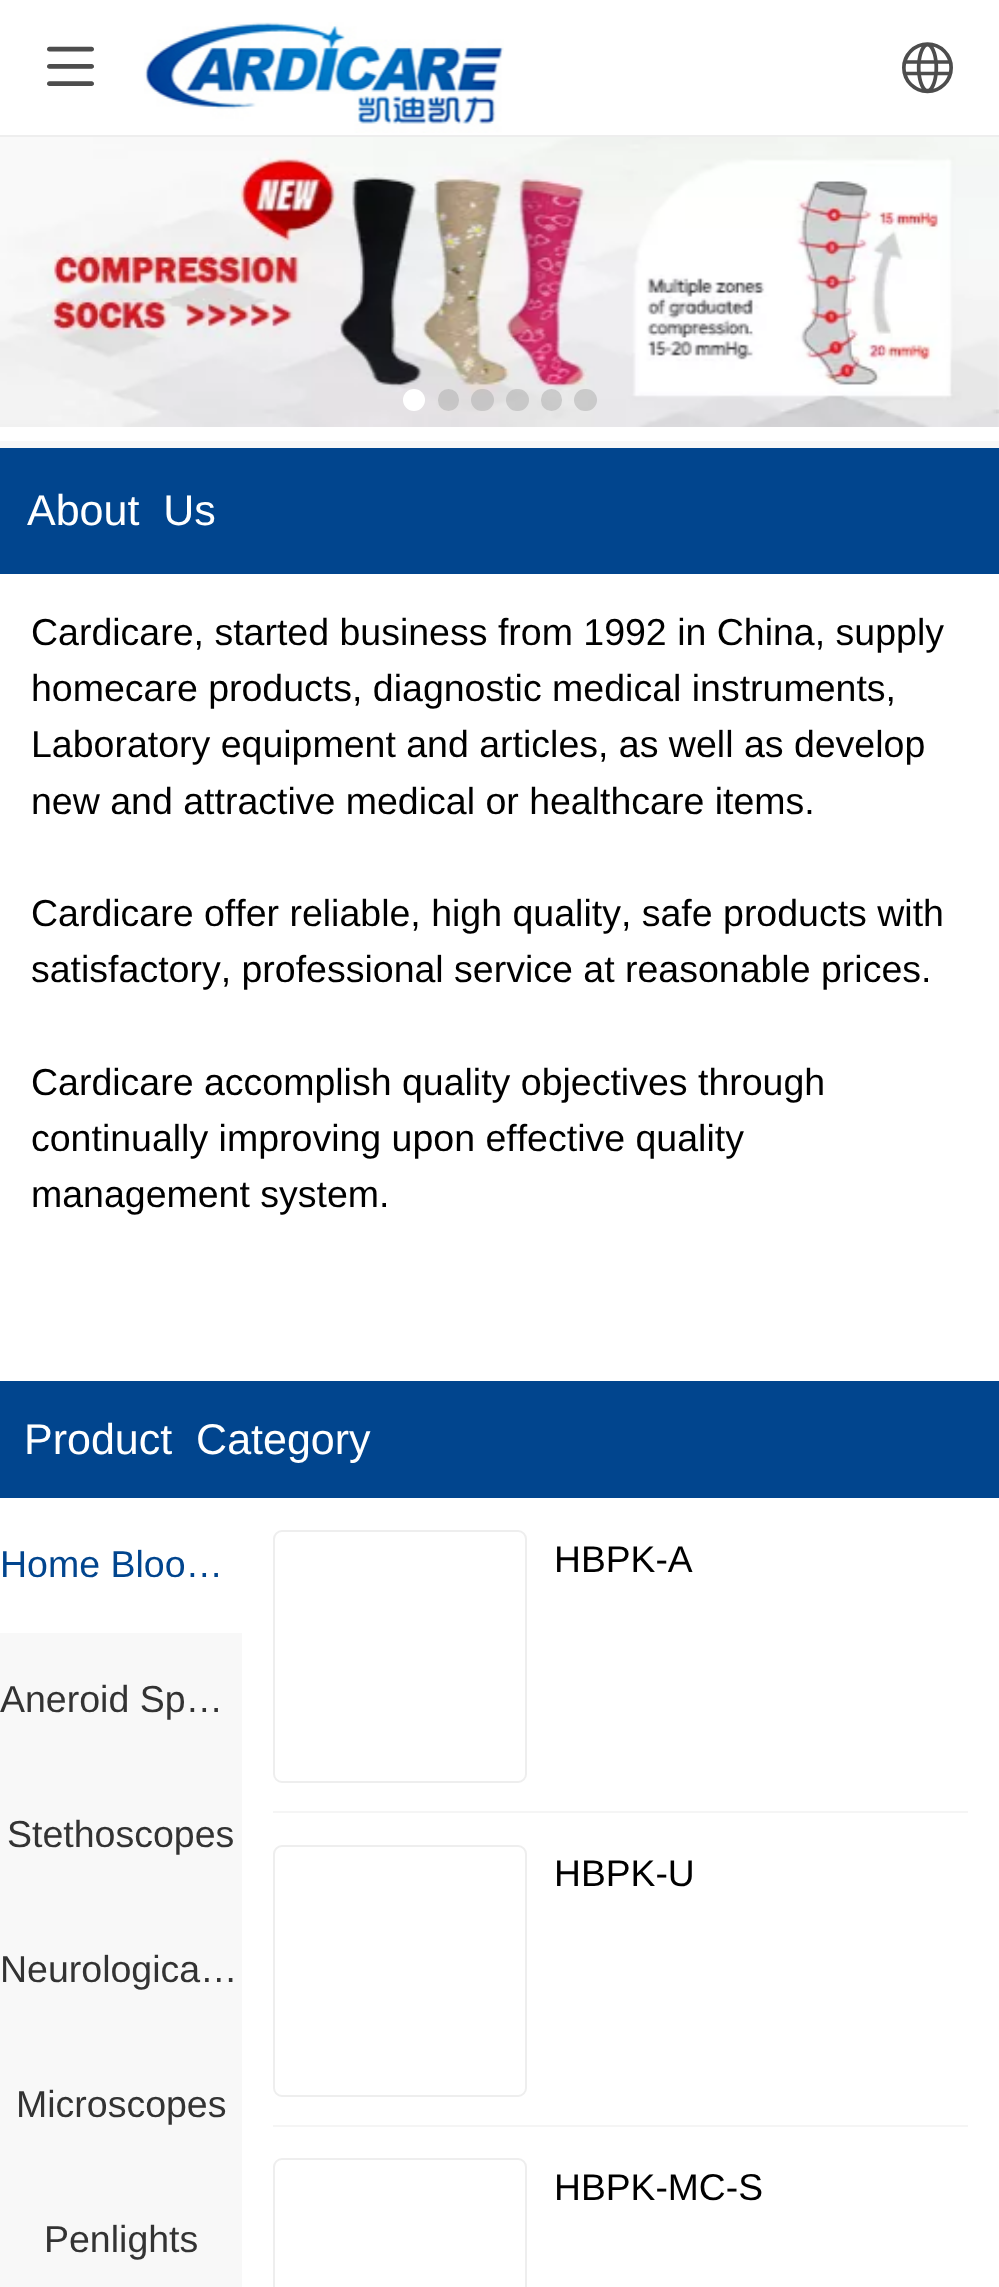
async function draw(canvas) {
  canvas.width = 999;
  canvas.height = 2287;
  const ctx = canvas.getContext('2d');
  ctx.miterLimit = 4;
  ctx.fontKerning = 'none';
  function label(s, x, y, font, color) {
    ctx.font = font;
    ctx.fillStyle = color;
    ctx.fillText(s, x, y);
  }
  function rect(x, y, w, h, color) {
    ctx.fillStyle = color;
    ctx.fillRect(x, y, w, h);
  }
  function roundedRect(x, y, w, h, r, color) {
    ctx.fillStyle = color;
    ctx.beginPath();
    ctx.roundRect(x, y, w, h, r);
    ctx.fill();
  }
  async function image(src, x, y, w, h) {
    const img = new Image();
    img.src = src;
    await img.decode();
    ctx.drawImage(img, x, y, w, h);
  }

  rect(0, 0, 999, 2287, '#f8f8f8');
  rect(0, 0, 999, 135, '#fff');
  label('򰌲', 47, 86, '47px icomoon', '#4d4d4d');
  rect(0, 135, 999, 2, '#eee');
  await image('assets/img1.png', 144, 22, 360, 111);
  label('򰊉', 902, 89, '51px icomoon', '#4d4d4d');
  await image('assets/img2.png', 0, 137, 999, 290);
  ctx.fillStyle = '#fff';
  ctx.beginPath();
  ctx.arc(414, 400, 11, 0, 2 * Math.PI);
  ctx.fill();
  roundedRect(438, 389, 21, 22, 10.5, '#ababab80');
  roundedRect(471, 389, 23, 22, 11, '#ababab80');
  roundedRect(506, 389, 23, 22, 11, '#ababab80');
  roundedRect(541, 389, 21, 22, 10.5, '#ababab80');
  roundedRect(574, 389, 23, 22, 11, '#ababab80');
  rect(0, 427, 999, 14, '#fff');
  rect(0, 448, 999, 126, '#01458e');
  label('About  Us', 27, 525, '43px Liberation Sans', '#fff');
  rect(0, 574, 999, 807, '#fff');
  label('Cardicare, started business from 1992 in China, supply', 31, 645, '37.5px Liberation Sans', '#000');
  label('homecare products, diagnostic medical instruments,', 31, 701, '37.5px Liberation Sans', '#000');
  label('Laboratory equipment and articles, as well as develop', 31, 757, '37.5px Liberation Sans', '#000');
  label('new and attractive medical or healthcare items.', 31, 814, '37.5px Liberation Sans', '#000');
  label('Cardicare offer reliable, high quality, safe products with', 31, 926, '37.5px Liberation Sans', '#000');
  label('satisfactory, professional service at reasonable prices.', 31, 982, '37.5px Liberation Sans', '#000');
  label('Cardicare accomplish quality objectives through', 31, 1095, '37.5px Liberation Sans', '#000');
  label('continually improving upon effective quality', 31, 1151, '37.5px Liberation Sans', '#000');
  label('management system.', 31, 1207, '37.5px Liberation Sans', '#000');
  rect(0, 1381, 999, 117, '#01458e');
  label('Product  Category', 24, 1454, '43px Liberation Sans', '#fff');
  rect(242, 1498, 757, 789, '#fff');
  rect(0, 1498, 242, 135, '#fff');
  label('Home Bloo…', 0, 1577, '37.5px Liberation Sans', '#01458e');
  label('Aneroid Sp…', 0, 1712, '37.5px Liberation Sans', '#333');
  label('Stethoscopes', 7, 1847, '37.5px Liberation Sans', '#333');
  label('Neurologica…', 0, 1982, '37.5px Liberation Sans', '#333');
  label('Microscopes', 16, 2117, '37.5px Liberation Sans', '#333');
  label('Penlights', 44, 2252, '37.5px Liberation Sans', '#333');
  rect(273, 1811, 695, 2, '#f5f5f5');
  ctx.beginPath();
  ctx.roundRect(274, 1531, 252, 251, 8);
  ctx.strokeStyle = '#eee';
  ctx.lineWidth = 2;
  ctx.stroke();
  label('HBPK-A', 554, 1572, '37.25px Liberation Sans', '#000');
  rect(273, 2125, 695, 2, '#f5f5f5');
  ctx.beginPath();
  ctx.roundRect(274, 1846, 252, 250, 8);
  ctx.stroke();
  label('HBPK-U', 554, 1886, '37.25px Liberation Sans', '#000');
  ctx.beginPath();
  ctx.roundRect(274, 2159, 252, 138, 8);
  ctx.stroke();
  label('HBPK-MC-S', 554, 2200, '37.25px Liberation Sans', '#000');
}

draw(document.querySelector('canvas'));
